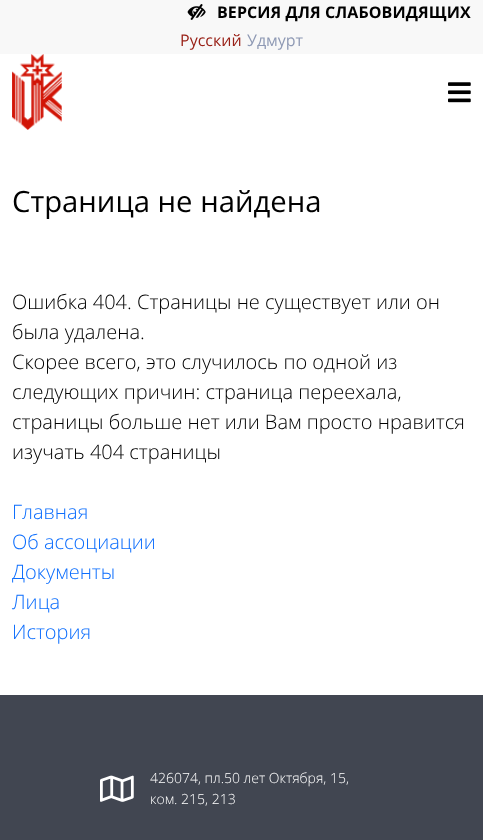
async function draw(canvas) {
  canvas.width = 483;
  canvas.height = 840;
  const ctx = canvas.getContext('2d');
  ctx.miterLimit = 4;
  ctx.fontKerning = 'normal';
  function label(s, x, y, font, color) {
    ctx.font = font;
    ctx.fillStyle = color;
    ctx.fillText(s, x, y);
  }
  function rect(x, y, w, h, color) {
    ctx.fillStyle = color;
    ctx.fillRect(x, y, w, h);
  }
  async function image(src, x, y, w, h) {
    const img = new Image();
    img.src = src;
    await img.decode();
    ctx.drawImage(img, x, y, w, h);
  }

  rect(0, 0, 483, 840, '#fff');
  rect(0, 0, 483, 54, '#f8f8f8');
  await image('assets/img1.png', 187, 4, 19, 16);
  ctx.letterSpacing = '0.1px';
  label('ВЕРСИЯ ДЛЯ СЛАБОВИДЯЩИХ', 217, 18, 'bold 16px Open Sans', '#000');
  ctx.letterSpacing = '0px';
  label('Русский', 180, 46, '16px Open Sans', '#992117');
  label('Удмурт', 247, 46, '16px Open Sans', '#8e99b4');
  await image('assets/img2.png', 12, 54, 50, 76);
  await image('assets/img3.png', 448, 82, 23, 21);
  label('Страница не найдена', 12, 212, '29.25px Open Sans', '#000');
  label('Ошибка 404. Страницы не существует или он', 12, 309, '300 20px Open Sans', '#000');
  label('была удалена.', 12, 339, '300 20px Open Sans', '#000');
  label('Скорее всего, это случилось по одной из', 12, 369, '300 20px Open Sans', '#000');
  label('следующих причин: страница переехала,', 12, 399, '300 20px Open Sans', '#000');
  label('страницы больше нет или Вам просто нравится', 12, 429, '300 20px Open Sans', '#000');
  label('изучать 404 страницы', 12, 459, '300 20px Open Sans', '#000');
  label('Главная', 12, 519, '300 20px Open Sans', '#0d6efd');
  label('Об ассоциации', 12, 549, '300 20px Open Sans', '#0d6efd');
  label('Документы', 12, 579, '300 20px Open Sans', '#0d6efd');
  label('Лица', 12, 609, '300 20px Open Sans', '#0d6efd');
  label('История', 12, 639, '300 20px Open Sans', '#0d6efd');
  rect(0, 695, 483, 145, '#414651');
  await image('assets/img4.png', 100, 775, 34, 27);
  label('426074, пл.50 лет Октября, 15,', 150, 783, '300 14px Open Sans', '#fff');
  label('ком. 215, 213', 150, 804, '300 14px Open Sans', '#fff');
}

draw(document.querySelector('canvas'));
